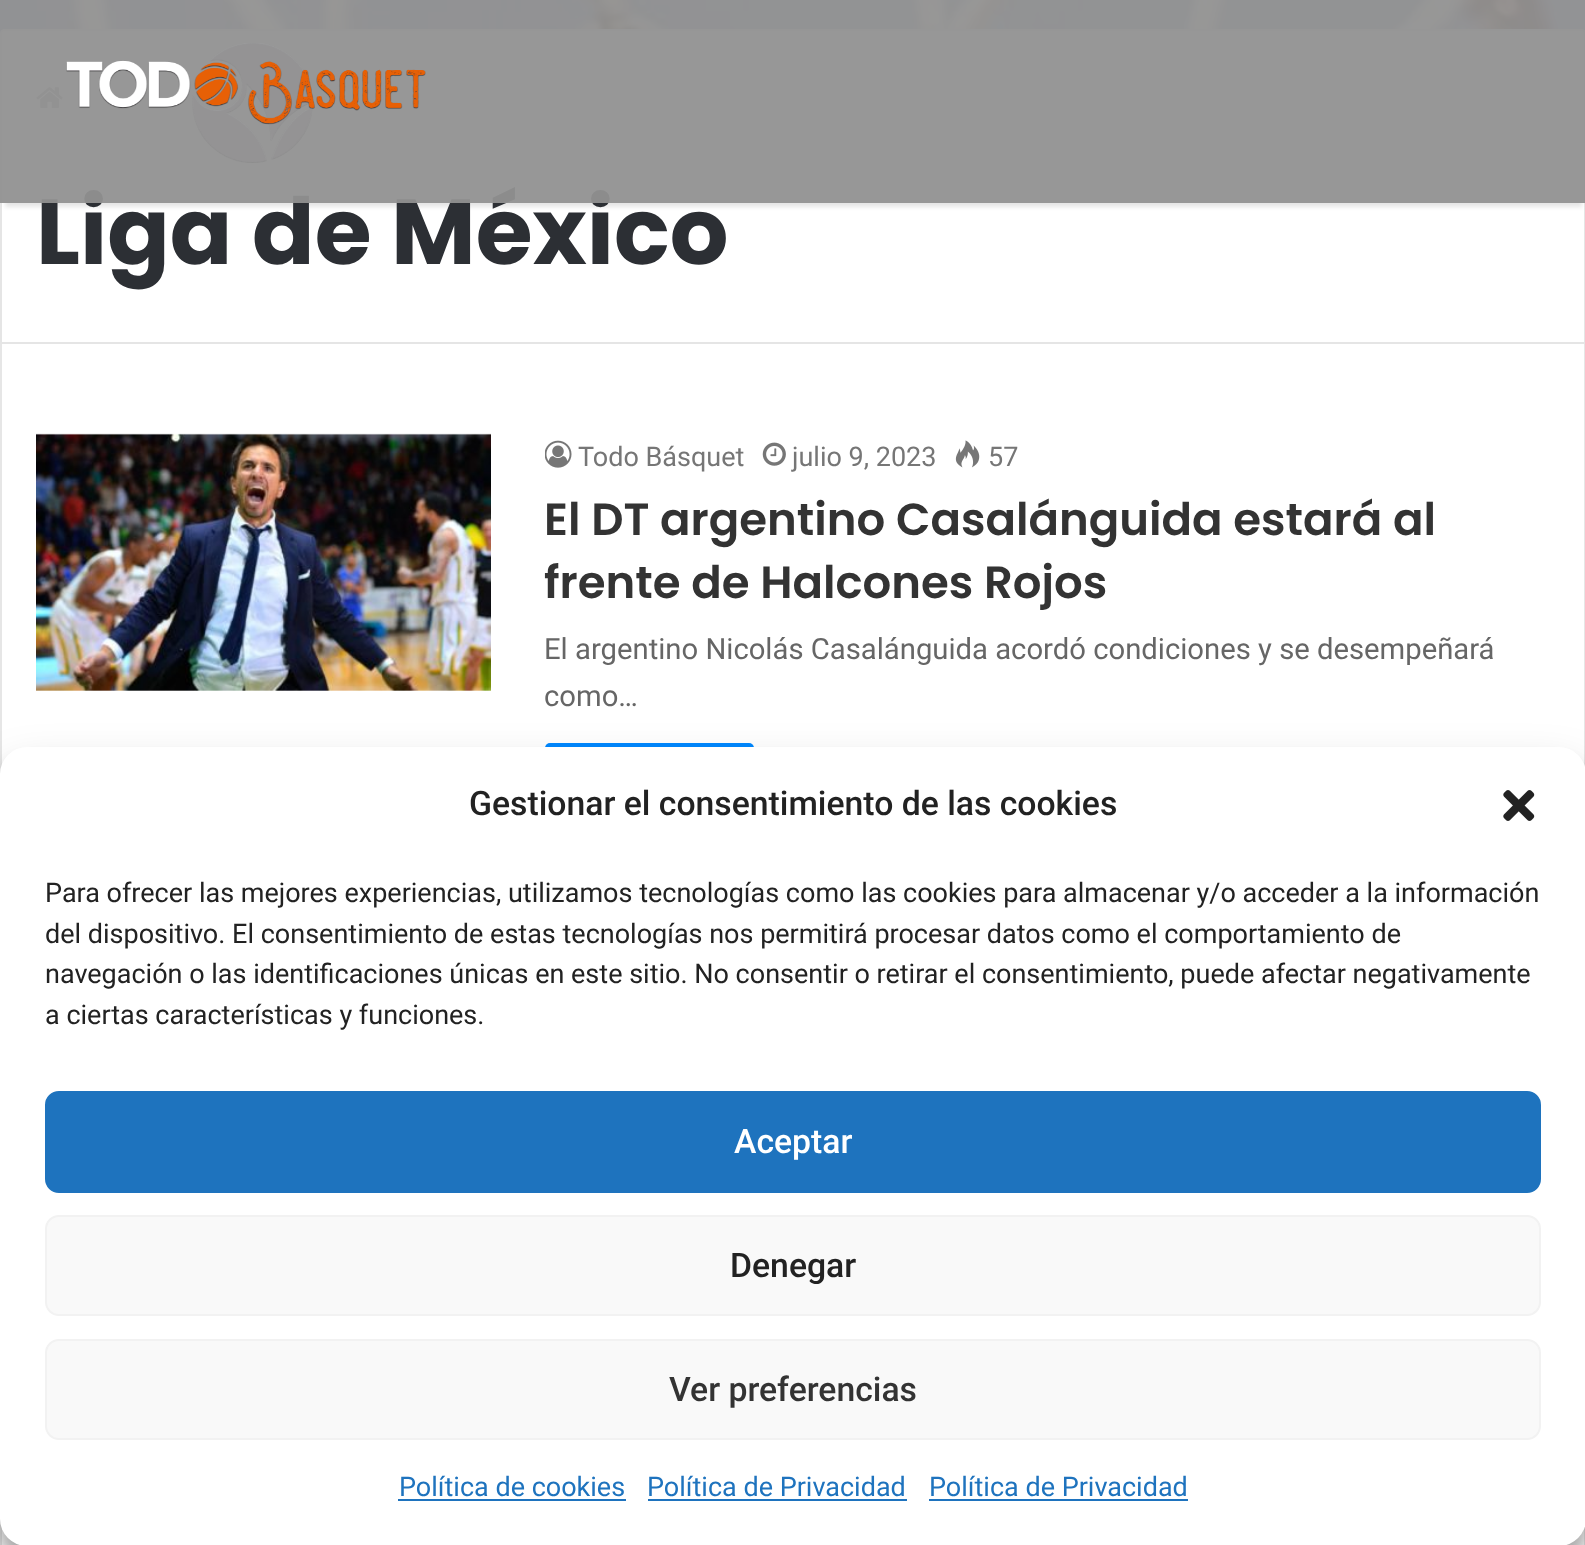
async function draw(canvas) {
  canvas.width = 1585;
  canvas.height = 1545;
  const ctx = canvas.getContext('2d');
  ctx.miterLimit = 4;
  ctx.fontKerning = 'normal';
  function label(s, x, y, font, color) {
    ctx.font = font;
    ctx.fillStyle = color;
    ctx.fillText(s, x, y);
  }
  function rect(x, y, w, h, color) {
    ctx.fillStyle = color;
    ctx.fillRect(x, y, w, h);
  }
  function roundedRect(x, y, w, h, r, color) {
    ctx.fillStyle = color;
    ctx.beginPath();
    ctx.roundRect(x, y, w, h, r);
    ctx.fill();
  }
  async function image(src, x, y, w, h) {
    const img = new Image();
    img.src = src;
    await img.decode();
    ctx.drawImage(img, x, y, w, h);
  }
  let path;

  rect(0, 0, 1585, 1545, '#fff');
  await image('assets/img1.png', 0, 0, 1585, 34);
  path = new Path2D('M5 29H1581C1584 29 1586 31 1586 34V344H0V34C0 31 2 29 5 29Z');
  ctx.fill(path);
  path = new Path2D('M5 30H1581C1583 30 1585 32 1585 34V343H1V34C1 32 3 30 5 30Z');
  ctx.strokeStyle = '#0000001a';
  ctx.lineWidth = 2;
  ctx.stroke(path);
  await image('assets/img3.png', 36, 87, 27, 22);
  ctx.save();
  path = new Path2D('M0 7H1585V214H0ZM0 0H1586V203H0Z');
  ctx.clip(path, 'evenodd');
  ctx.fillStyle = '#0000001a';
  ctx.filter = 'blur(2px)';
  ctx.beginPath();
  ctx.rect(5, 14, 1577, 193);
  ctx.fill();
  ctx.filter = 'none';
  ctx.restore();
  label('Liga de México', 36, 264, 'bold 92.25px Poppins', '#2c2f34');
  rect(0, 0, 1585, 203, '#919191f2');
  await image('assets/img2.png', 66, 43, 360, 120);
  rect(1584, 344, 1, 1201, '#e6e6e6');
  rect(0, 344, 2, 1201, '#e6e6e6');
  await image('assets/img4.png', 36, 433, 455, 258);
  await image('assets/img5.png', 545, 440, 27, 28);
  label('Todo Básquet', 578, 466, '27px Roboto', '#767676');
  await image('assets/img6.png', 762, 442, 24, 24);
  label('julio 9, 2023', 792, 466, '27px Roboto', '#767676');
  await image('assets/img7.png', 955, 440, 25, 28);
  label('57', 988, 466, '27px Roboto', '#767676');
  label('El DT argentino Casalánguida estará al', 544, 535, '600 45px Poppins', '#333');
  label('frente de Halcones Rojos', 544, 598, '600 45px Poppins', '#333');
  label('El argentino Nicolás Casalánguida acordó condiciones y se desempeñará', 544, 659, '29.25px Roboto', '#666');
  label('como…', 544, 706, '29.25px Roboto', '#666');
  roundedRect(545, 743, 209, 78, 5, '#08f');
  ctx.fillStyle = '#0000003b';
  ctx.filter = 'blur(7px)';
  ctx.beginPath();
  ctx.roundRect(0, 761, 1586, 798, 27);
  ctx.fill();
  ctx.filter = 'none';
  ctx.fillStyle = '#00000030';
  ctx.filter = 'blur(22.5px)';
  ctx.beginPath();
  ctx.roundRect(0, 770, 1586, 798, 27);
  ctx.fill();
  ctx.filter = 'none';
  roundedRect(0, 747, 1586, 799, 27, '#fff');
  label('Gestionar el consentimiento de las cookies', 469, 815, '500 33.75px Roboto', '#222');
  await image('assets/img8.png', 1503, 790, 32, 31);
  label('Para ofrecer las mejores experiencias, utilizamos tecnologías como las cookies para almacenar y/o acceder a la información', 45, 902, '27px Roboto', '#222');
  label('del dispositivo. El consentimiento de estas tecnologías nos permitirá procesar datos como el comportamiento de', 45, 943, '27px Roboto', '#222');
  label('navegación o las identificaciones únicas en este sitio. No consentir o retirar el consentimiento, puede afectar negativamente', 45, 983, '27px Roboto', '#222');
  label('a ciertas características y funciones.', 45, 1024, '27px Roboto', '#222');
  ctx.fillStyle = '#1e73be';
  ctx.beginPath();
  ctx.roundRect(46, 1092, 1494, 100, 13);
  ctx.fill();
  ctx.strokeStyle = '#1e73be';
  ctx.stroke();
  label('Aceptar', 734, 1153, '500 33.75px Roboto', '#fff');
  ctx.fillStyle = '#f9f9f9';
  ctx.beginPath();
  ctx.roundRect(46, 1216, 1494, 99, 13);
  ctx.fill();
  ctx.strokeStyle = '#f2f2f2';
  ctx.stroke();
  label('Denegar', 730, 1277, '500 33.75px Roboto', '#222');
  ctx.fillStyle = '#f9f9f9';
  ctx.beginPath();
  ctx.roundRect(46, 1340, 1494, 99, 13);
  ctx.fill();
  ctx.stroke();
  label('Ver preferencias', 669, 1401, '500 33.75px Roboto', '#333');
  label('Política de cookies', 399, 1496, '27px Roboto', '#1e73be');
  rect(398, 1499, 228, 2, '#1e73be');
  label('Política de Privacidad', 647, 1496, '27px Roboto', '#1e73be');
  rect(648, 1499, 259, 2, '#1e73be');
  label('Política de Privacidad', 929, 1496, '27px Roboto', '#1e73be');
  rect(929, 1499, 259, 2, '#1e73be');
}

draw(document.querySelector('canvas'));
